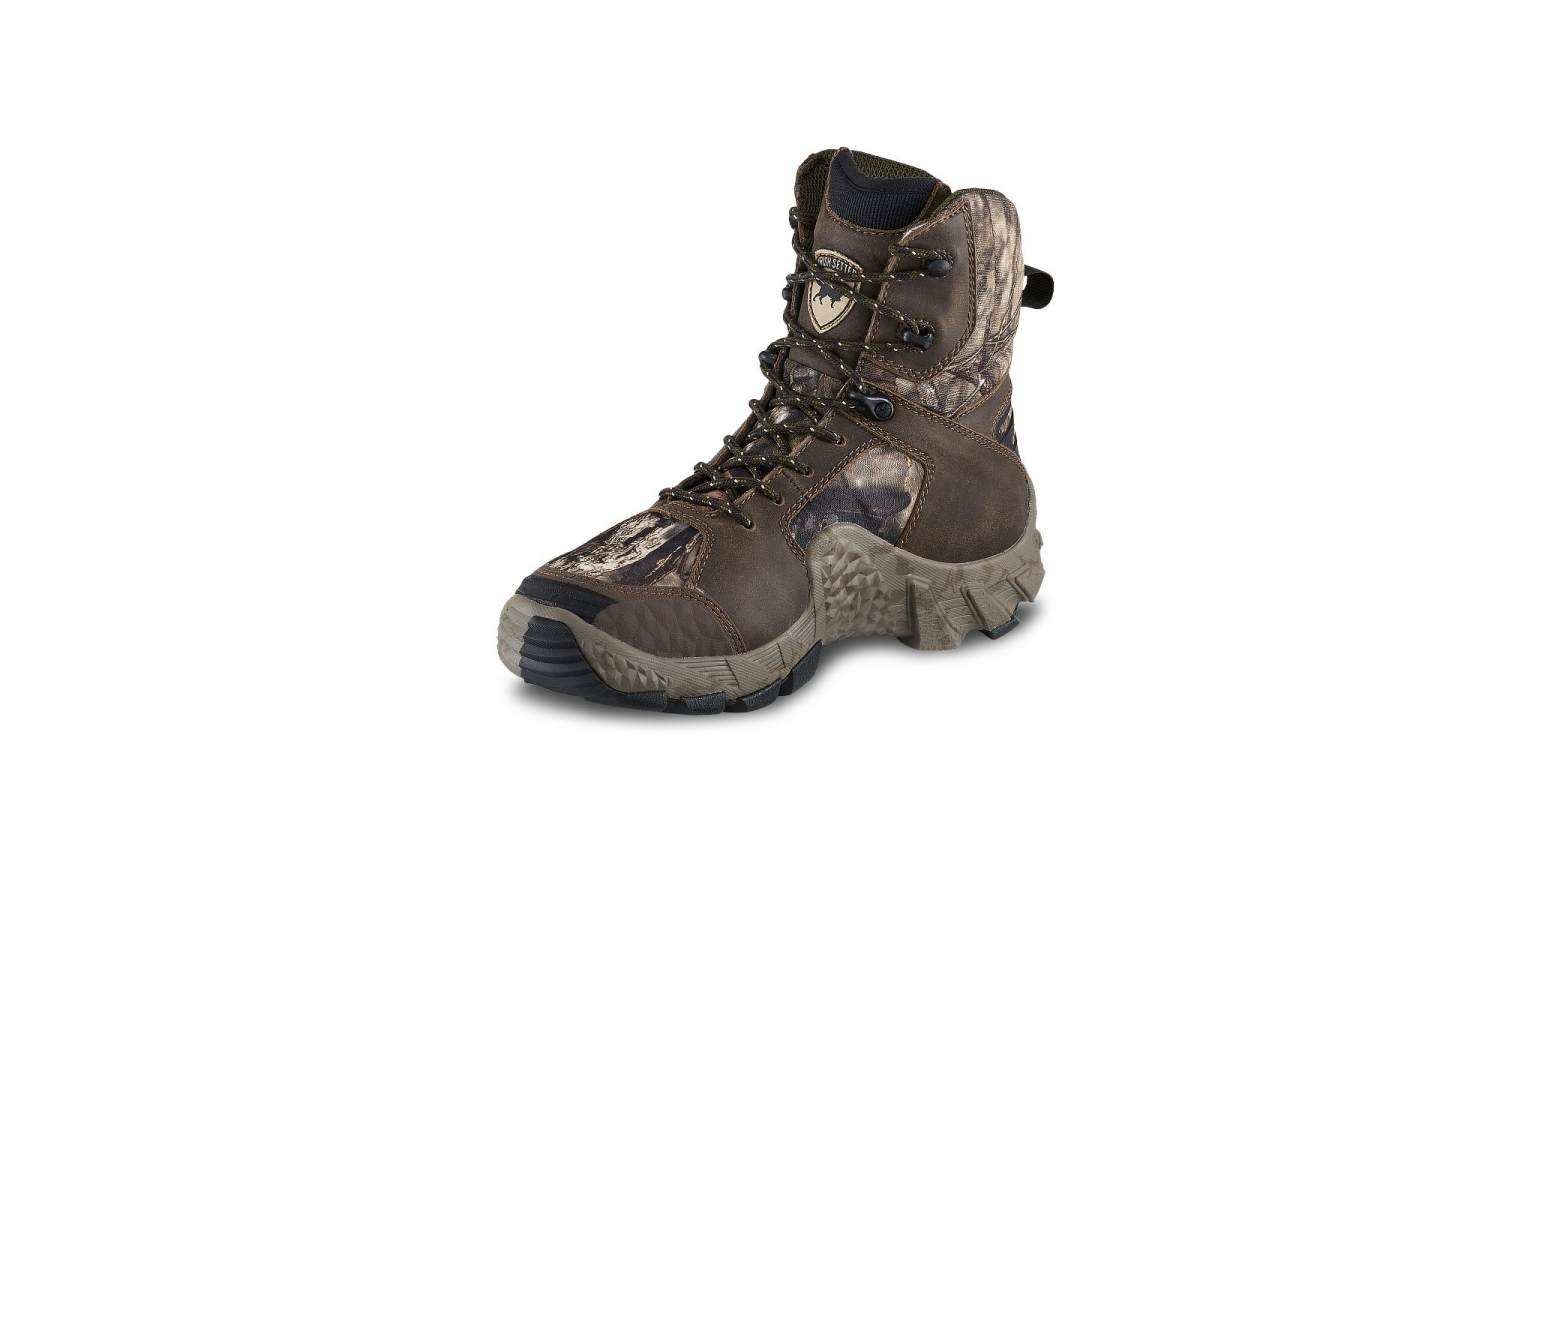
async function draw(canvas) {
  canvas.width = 1541;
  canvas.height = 1322;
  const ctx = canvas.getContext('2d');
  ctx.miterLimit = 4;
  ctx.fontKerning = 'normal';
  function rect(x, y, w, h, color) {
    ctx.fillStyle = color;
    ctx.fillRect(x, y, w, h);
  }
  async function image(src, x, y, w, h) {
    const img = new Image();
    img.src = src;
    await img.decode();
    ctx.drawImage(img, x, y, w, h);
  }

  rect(0, 0, 1541, 1322, '#fff');
  await image('assets/img1.png', 492, 144, 564, 590);
}

draw(document.querySelector('canvas'));
